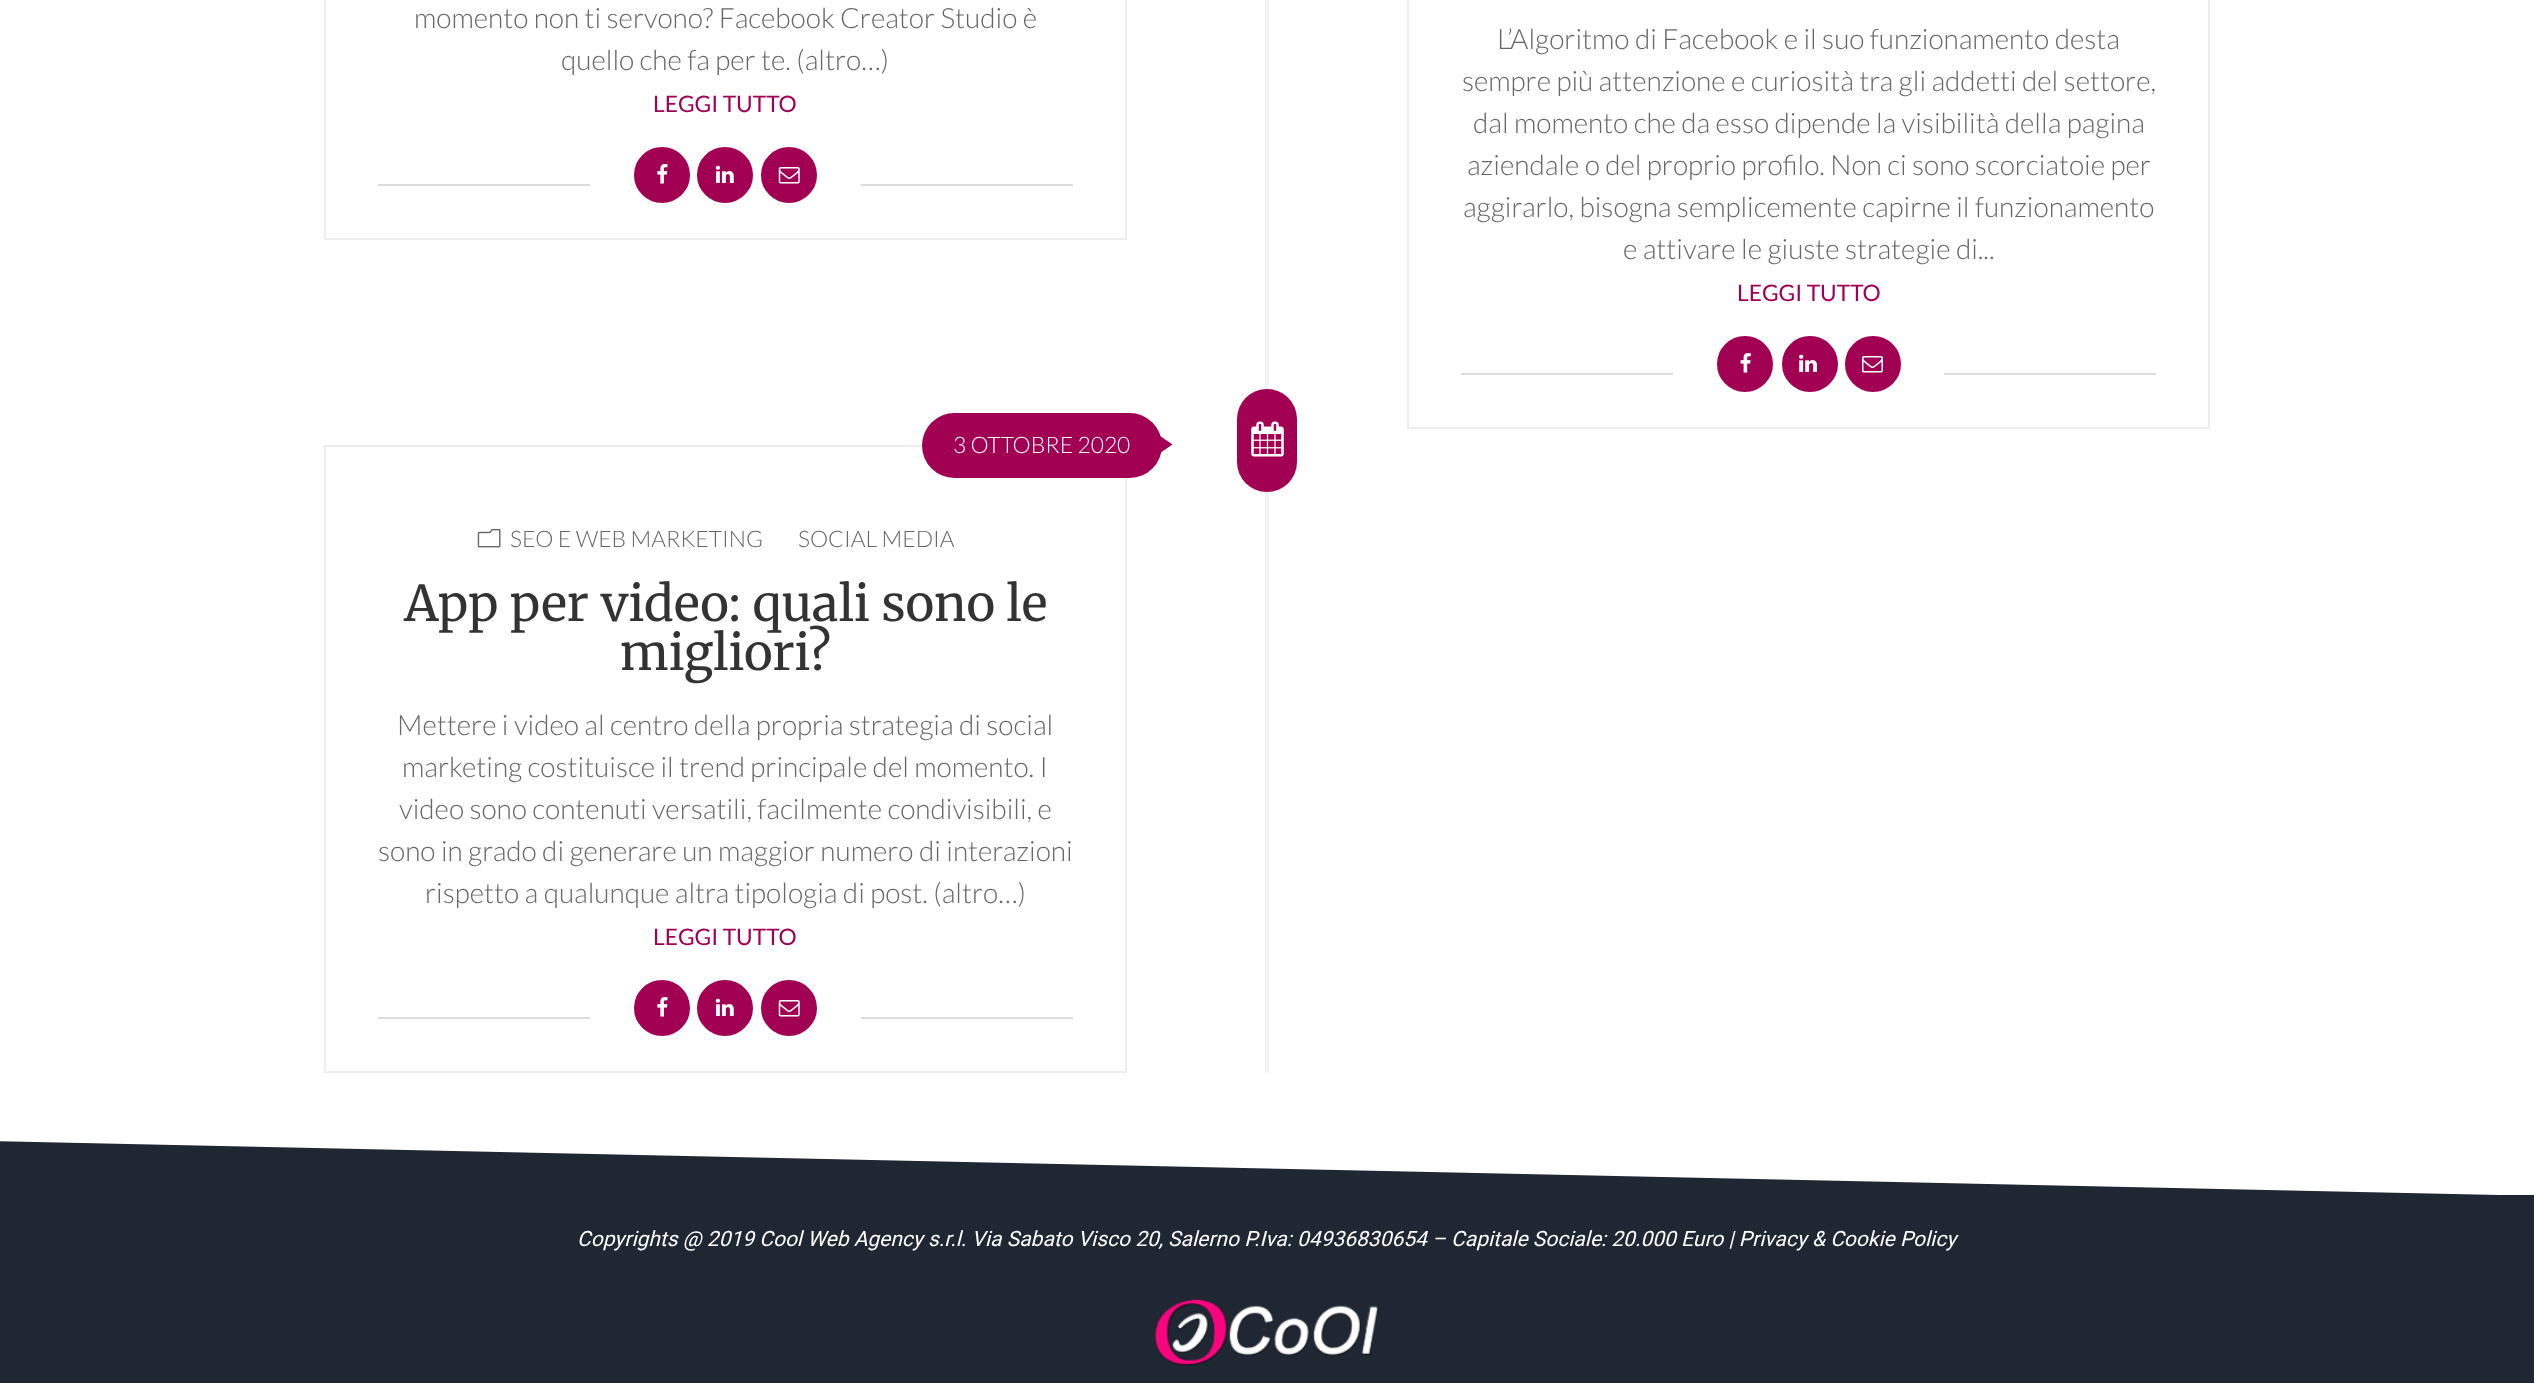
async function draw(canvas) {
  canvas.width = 2534;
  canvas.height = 1383;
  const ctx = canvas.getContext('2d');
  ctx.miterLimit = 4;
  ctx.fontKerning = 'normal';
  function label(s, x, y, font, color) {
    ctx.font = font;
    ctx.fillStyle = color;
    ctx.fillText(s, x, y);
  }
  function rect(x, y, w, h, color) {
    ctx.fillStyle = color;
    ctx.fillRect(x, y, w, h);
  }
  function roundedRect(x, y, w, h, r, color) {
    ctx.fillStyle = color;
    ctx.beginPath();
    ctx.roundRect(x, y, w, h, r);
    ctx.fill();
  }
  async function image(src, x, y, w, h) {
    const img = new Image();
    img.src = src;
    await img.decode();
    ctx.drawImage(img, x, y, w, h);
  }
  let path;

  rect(0, 0, 2534, 1383, '#fff');
  ctx.strokeStyle = '#eee';
  ctx.lineWidth = 2;
  ctx.strokeRect(325, -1, 801, 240);
  label('momento non ti servono? Facebook Creator Studio è', 414, 28, '300 28px Lato', '#666');
  label('quello che fa per te. (altro…)', 561, 70, '300 28px Lato', '#666');
  label('LEGGI TUTTO', 653, 112, '22.75px Lato', '#a20053');
  rect(378, 184, 695, 2, '#ddd');
  rect(590, 184, 271, 2, '#fff');
  ctx.fillStyle = '#a20053';
  ctx.beginPath();
  ctx.arc(662, 175, 26, 0, 2 * Math.PI);
  ctx.fill();
  ctx.strokeStyle = '#a20053';
  ctx.lineWidth = 4;
  ctx.stroke();
  await image('assets/img1.png', 657, 164, 11, 20);
  ctx.beginPath();
  ctx.arc(725, 175, 26, 0, 2 * Math.PI);
  ctx.fill();
  ctx.stroke();
  await image('assets/img2.png', 715, 165, 19, 18);
  ctx.beginPath();
  ctx.arc(789, 175, 26, 0, 2 * Math.PI);
  ctx.fill();
  ctx.stroke();
  await image('assets/img3.png', 778, 167, 22, 17);
  rect(1265, 0, 4, 1073, '#f4f4f4');
  ctx.strokeStyle = '#eee';
  ctx.lineWidth = 2;
  ctx.strokeRect(1408, -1, 801, 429);
  label('L’Algoritmo di Facebook e il suo funzionamento desta', 1497, 49, '300 28px Lato', '#666');
  label('sempre più attenzione e curiosità tra gli addetti del settore,', 1462, 91, '300 28px Lato', '#666');
  label('dal momento che da esso dipende la visibilità della pagina', 1473, 133, '300 28px Lato', '#666');
  label('aziendale o del proprio profilo. Non ci sono scorciatoie per', 1467, 175, '300 28px Lato', '#666');
  label('aggirarlo, bisogna semplicemente capirne il funzionamento', 1463, 217, '300 28px Lato', '#666');
  label('e attivare le giuste strategie di...', 1623, 259, '300 28px Lato', '#666');
  label('LEGGI TUTTO', 1737, 301, '22.75px Lato', '#a20053');
  rect(1461, 373, 695, 2, '#ddd');
  rect(1673, 373, 271, 2, '#fff');
  ctx.fillStyle = '#a20053';
  ctx.beginPath();
  ctx.arc(1745, 364, 26, 0, 2 * Math.PI);
  ctx.fill();
  ctx.strokeStyle = '#a20053';
  ctx.lineWidth = 4;
  ctx.stroke();
  await image('assets/img4.png', 1740, 353, 11, 20);
  ctx.beginPath();
  ctx.arc(1810, 364, 26, 0, 2 * Math.PI);
  ctx.fill();
  ctx.stroke();
  await image('assets/img5.png', 1799, 354, 18, 18);
  ctx.beginPath();
  ctx.arc(1873, 364, 26, 0, 2 * Math.PI);
  ctx.fill();
  ctx.stroke();
  await image('assets/img6.png', 1862, 356, 21, 17);
  ctx.strokeStyle = '#eee';
  ctx.lineWidth = 2;
  ctx.strokeRect(325, 446, 801, 626);
  roundedRect(922, 413, 240, 65, 32.5, '#a20053');
  label('3 OTTOBRE 2020', 953, 453, '300 22.75px Lato', '#fff');
  ctx.fillStyle = '#a20053';
  path = new Path2D('M1160 453V436L1172.5 444.5Z');
  ctx.fill(path);
  await image('assets/img7.png', 477, 528, 24, 20);
  label('SEO E WEB MARKETING', 510, 547, '300 22.75px Lato', '#666');
  label('SOCIAL MEDIA', 798, 547, '300 22.75px Lato', '#666');
  label('App per video: quali sono le', 404, 621, '49px Merriweather', '#333');
  label('migliori?', 620, 670, '49px Merriweather', '#333');
  label('Mettere i video al centro della propria strategia di social', 397, 735, '300 28px Lato', '#666');
  label('marketing costituisce il trend principale del momento. I', 402, 777, '300 28px Lato', '#666');
  label('video sono contenuti versatili, facilmente condivisibili, e', 399, 819, '300 28px Lato', '#666');
  label('sono in grado di generare un maggior numero di interazioni', 378, 861, '300 28px Lato', '#666');
  label('rispetto a qualunque altra tipologia di post. (altro…)', 425, 903, '300 28px Lato', '#666');
  label('LEGGI TUTTO', 653, 945, '22.75px Lato', '#a20053');
  rect(378, 1017, 695, 2, '#ddd');
  rect(590, 1017, 271, 2, '#fff');
  ctx.fillStyle = '#a20053';
  ctx.beginPath();
  ctx.arc(662, 1008, 26, 0, 2 * Math.PI);
  ctx.fill();
  ctx.strokeStyle = '#a20053';
  ctx.lineWidth = 4;
  ctx.stroke();
  await image('assets/img1.png', 657, 997, 11, 20);
  ctx.beginPath();
  ctx.arc(725, 1008, 26, 0, 2 * Math.PI);
  ctx.fill();
  ctx.stroke();
  await image('assets/img2.png', 715, 998, 19, 18);
  ctx.beginPath();
  ctx.arc(789, 1008, 26, 0, 2 * Math.PI);
  ctx.fill();
  ctx.stroke();
  await image('assets/img3.png', 778, 1000, 22, 17);
  roundedRect(1237, 389, 60, 103, 30, '#a20053');
  await image('assets/img8.png', 1251, 421, 33, 36);
  rect(0, 1195, 2534, 188, '#1f2732');
  ctx.save();
  ctx.beginPath();
  ctx.rect(0, 1134, 2534, 63);
  ctx.clip();
  path = new Path2D('M-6 1141L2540 1196V1201H-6Z');
  ctx.fill(path);
  ctx.restore();
  label('Copyrights @ 2019 Cool Web Agency s.r.l. Via Sabato Visco 20, Salerno P.Iva: 04936830654 – Capitale Sociale: 20.000 Euro | Privacy & Cookie Policy', 577, 1246, 'italic 21px Roboto', '#fff');
  await image('assets/img9.png', 1155, 1299, 224, 67);
}

draw(document.querySelector('canvas'));
